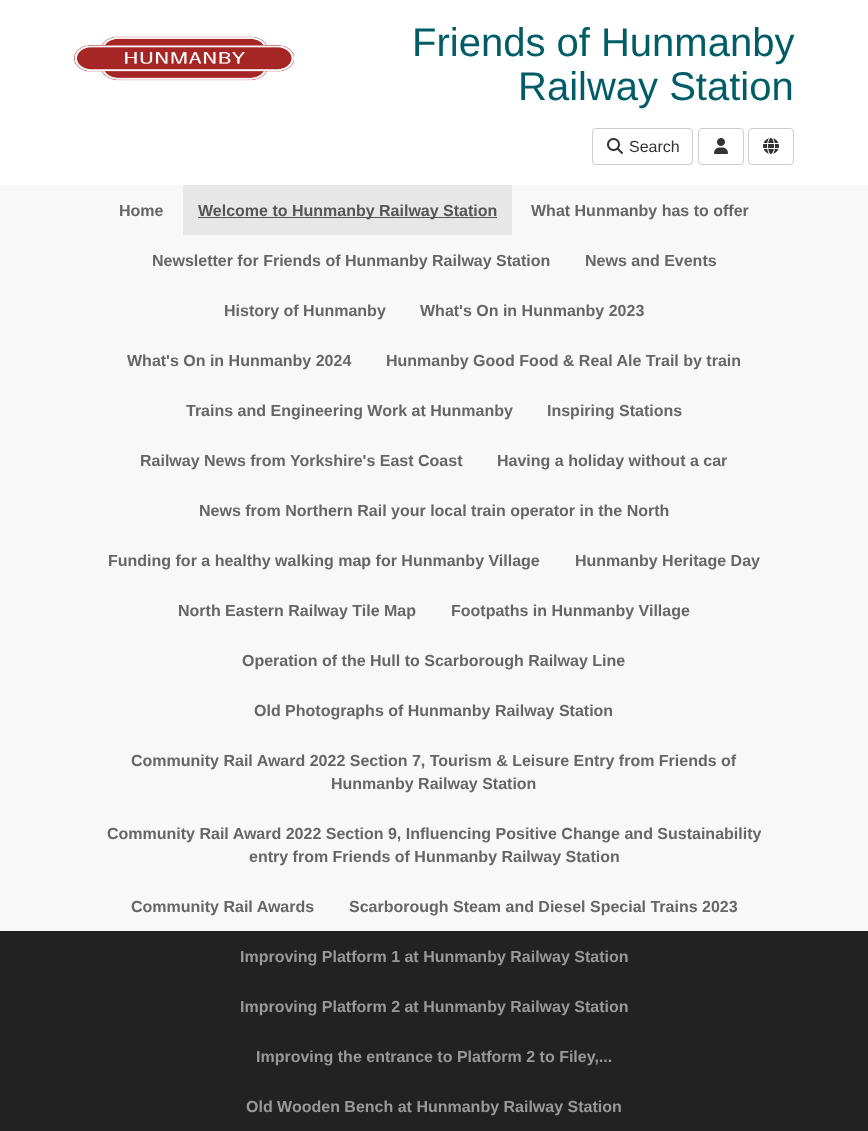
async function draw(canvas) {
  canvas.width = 868;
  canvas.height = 1131;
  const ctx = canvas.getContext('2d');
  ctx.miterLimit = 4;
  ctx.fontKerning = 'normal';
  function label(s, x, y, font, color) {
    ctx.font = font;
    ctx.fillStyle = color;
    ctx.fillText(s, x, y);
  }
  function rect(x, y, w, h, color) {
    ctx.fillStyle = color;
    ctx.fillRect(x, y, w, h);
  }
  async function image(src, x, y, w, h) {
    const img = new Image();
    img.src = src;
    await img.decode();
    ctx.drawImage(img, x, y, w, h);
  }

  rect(0, 0, 868, 1131, '#fff');
  await image('assets/img1.png', 74, 36, 220, 45);
  label('Friends of Hunmanby', 412, 56, '40px Liberation Sans', '#005c66');
  label('Railway Station', 518, 100, '40px Liberation Sans', '#005c66');
  ctx.beginPath();
  ctx.roundRect(592.5, 128.5, 100, 36, 3.5);
  ctx.strokeStyle = '#ccc';
  ctx.stroke();
  await image('assets/img2.png', 607, 138, 16, 16);
  label('Search', 629, 152, '16px Liberation Sans', '#333');
  ctx.beginPath();
  ctx.roundRect(698.5, 128.5, 45, 36, 3.5);
  ctx.stroke();
  await image('assets/img3.png', 714, 138, 14, 16);
  ctx.beginPath();
  ctx.roundRect(748.5, 128.5, 45, 36, 3.5);
  ctx.stroke();
  await image('assets/img4.png', 763, 138, 16, 16);
  rect(0, 185, 868, 746, '#f8f8f8');
  label('Home', 119, 216, 'bold 16px Liberation Sans', '#666');
  rect(183, 185, 329, 50, '#e7e7e7');
  rect(198, 217, 299, 1, '#555');
  label('Welcome to Hunmanby Railway Station', 198, 216, 'bold 16px Liberation Sans', '#555');
  label('What Hunmanby has to offer', 531, 216, 'bold 16px Liberation Sans', '#666');
  label('Newsletter for Friends of Hunmanby Railway Station', 152, 266, 'bold 16px Liberation Sans', '#666');
  label('News and Events', 585, 266, 'bold 16px Liberation Sans', '#666');
  label('History of Hunmanby', 224, 316, 'bold 16px Liberation Sans', '#666');
  label('What\'s On in Hunmanby 2023', 420, 316, 'bold 16px Liberation Sans', '#666');
  label('What\'s On in Hunmanby 2024', 127, 366, 'bold 16px Liberation Sans', '#666');
  label('Hunmanby Good Food & Real Ale Trail by train', 386, 366, 'bold 16px Liberation Sans', '#666');
  label('Trains and Engineering Work at Hunmanby', 186, 416, 'bold 16px Liberation Sans', '#666');
  label('Inspiring Stations', 547, 416, 'bold 16px Liberation Sans', '#666');
  label('Railway News from Yorkshire\'s East Coast', 140, 466, 'bold 16px Liberation Sans', '#666');
  label('Having a holiday without a car', 497, 466, 'bold 16px Liberation Sans', '#666');
  label('News from Northern Rail your local train operator in the North', 199, 516, 'bold 16px Liberation Sans', '#666');
  label('Funding for a healthy walking map for Hunmanby Village', 108, 566, 'bold 16px Liberation Sans', '#666');
  label('Hunmanby Heritage Day', 575, 566, 'bold 16px Liberation Sans', '#666');
  label('North Eastern Railway Tile Map', 178, 616, 'bold 16px Liberation Sans', '#666');
  label('Footpaths in Hunmanby Village', 451, 616, 'bold 16px Liberation Sans', '#666');
  label('Operation of the Hull to Scarborough Railway Line', 242, 666, 'bold 16px Liberation Sans', '#666');
  label('Old Photographs of Hunmanby Railway Station', 254, 716, 'bold 16px Liberation Sans', '#666');
  label('Community Rail Award 2022 Section 7, Tourism & Leisure Entry from Friends of', 131, 766, 'bold 16px Liberation Sans', '#666');
  label('Hunmanby Railway Station', 331, 789, 'bold 16px Liberation Sans', '#666');
  label('Community Rail Award 2022 Section 9, Influencing Positive Change and Sustainability', 107, 839, 'bold 16px Liberation Sans', '#666');
  label('entry from Friends of Hunmanby Railway Station', 249, 862, 'bold 16px Liberation Sans', '#666');
  label('Community Rail Awards', 131, 912, 'bold 16px Liberation Sans', '#666');
  label('Scarborough Steam and Diesel Special Trains 2023', 349, 912, 'bold 16px Liberation Sans', '#666');
  rect(0, 931, 868, 200, '#222');
  label('Improving Platform 1 at Hunmanby Railway Station', 240, 962, 'bold 16px Liberation Sans', '#999');
  label('Improving Platform 2 at Hunmanby Railway Station', 240, 1012, 'bold 16px Liberation Sans', '#999');
  label('Improving the entrance to Platform 2 to Filey,...', 256, 1062, 'bold 16px Liberation Sans', '#999');
  label('Old Wooden Bench at Hunmanby Railway Station', 246, 1112, 'bold 16px Liberation Sans', '#999');
}

draw(document.querySelector('canvas'));
